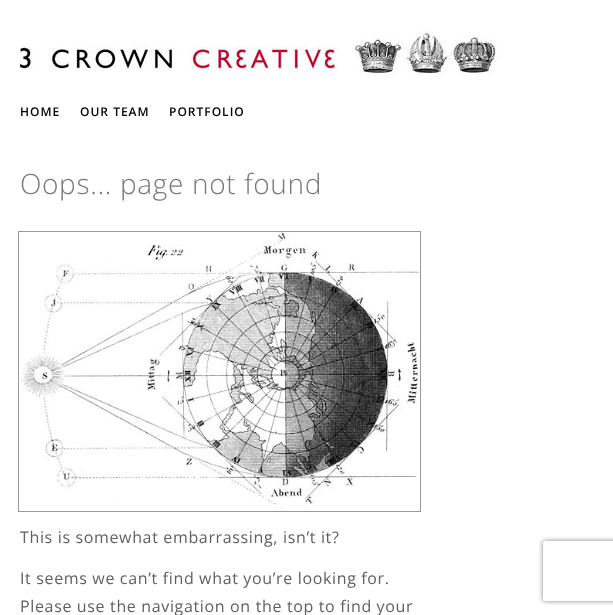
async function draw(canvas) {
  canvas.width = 613;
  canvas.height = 615;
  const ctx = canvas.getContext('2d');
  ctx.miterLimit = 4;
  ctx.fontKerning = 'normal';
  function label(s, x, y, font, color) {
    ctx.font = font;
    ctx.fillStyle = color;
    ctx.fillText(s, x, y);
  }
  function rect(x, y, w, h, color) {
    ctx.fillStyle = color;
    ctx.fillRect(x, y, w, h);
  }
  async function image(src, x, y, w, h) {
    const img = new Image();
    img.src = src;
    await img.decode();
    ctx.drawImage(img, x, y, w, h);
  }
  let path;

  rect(0, 0, 613, 615, '#fff');
  await image('assets/img1.png', 20, 30, 480, 48);
  ctx.letterSpacing = '1px';
  label('HOME', 20, 116, '600 12px Open Sans', '#000');
  label('OUR TEAM', 80, 116, '600 12px Open Sans', '#000');
  label('PORTFOLIO', 169, 116, '600 12px Open Sans', '#000');
  ctx.letterSpacing = '0.65px';
  label('Oops... page not found', 20, 194, '300 28px Open Sans', '#7a7979');
  ctx.strokeStyle = '#9a9898';
  ctx.strokeRect(18.5, 231.5, 402, 280);
  await image('assets/img2.png', 20, 232, 400, 276);
  label('This is somewhat embarrassing, isn’t it?', 20, 543, '16px Open Sans', '#606060');
  label('It seems we can’t find what you’re looking for.', 20, 584, '16px Open Sans', '#606060');
  label('Please use the navigation on the top to find your', 20, 612, '16px Open Sans', '#606060');
  ctx.save();
  path = new Path2D('M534 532H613V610H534ZM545 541H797C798 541 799 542 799 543V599C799 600 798 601 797 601H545C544 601 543 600 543 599V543C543 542 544 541 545 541Z');
  ctx.clip(path, 'evenodd');
  ctx.fillStyle = '#808080';
  ctx.filter = 'blur(2.5px)';
  ctx.beginPath();
  ctx.roundRect(543, 541, 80, 60, 2);
  ctx.fill();
  ctx.filter = 'none';
  ctx.restore();
}

draw(document.querySelector('canvas'));
